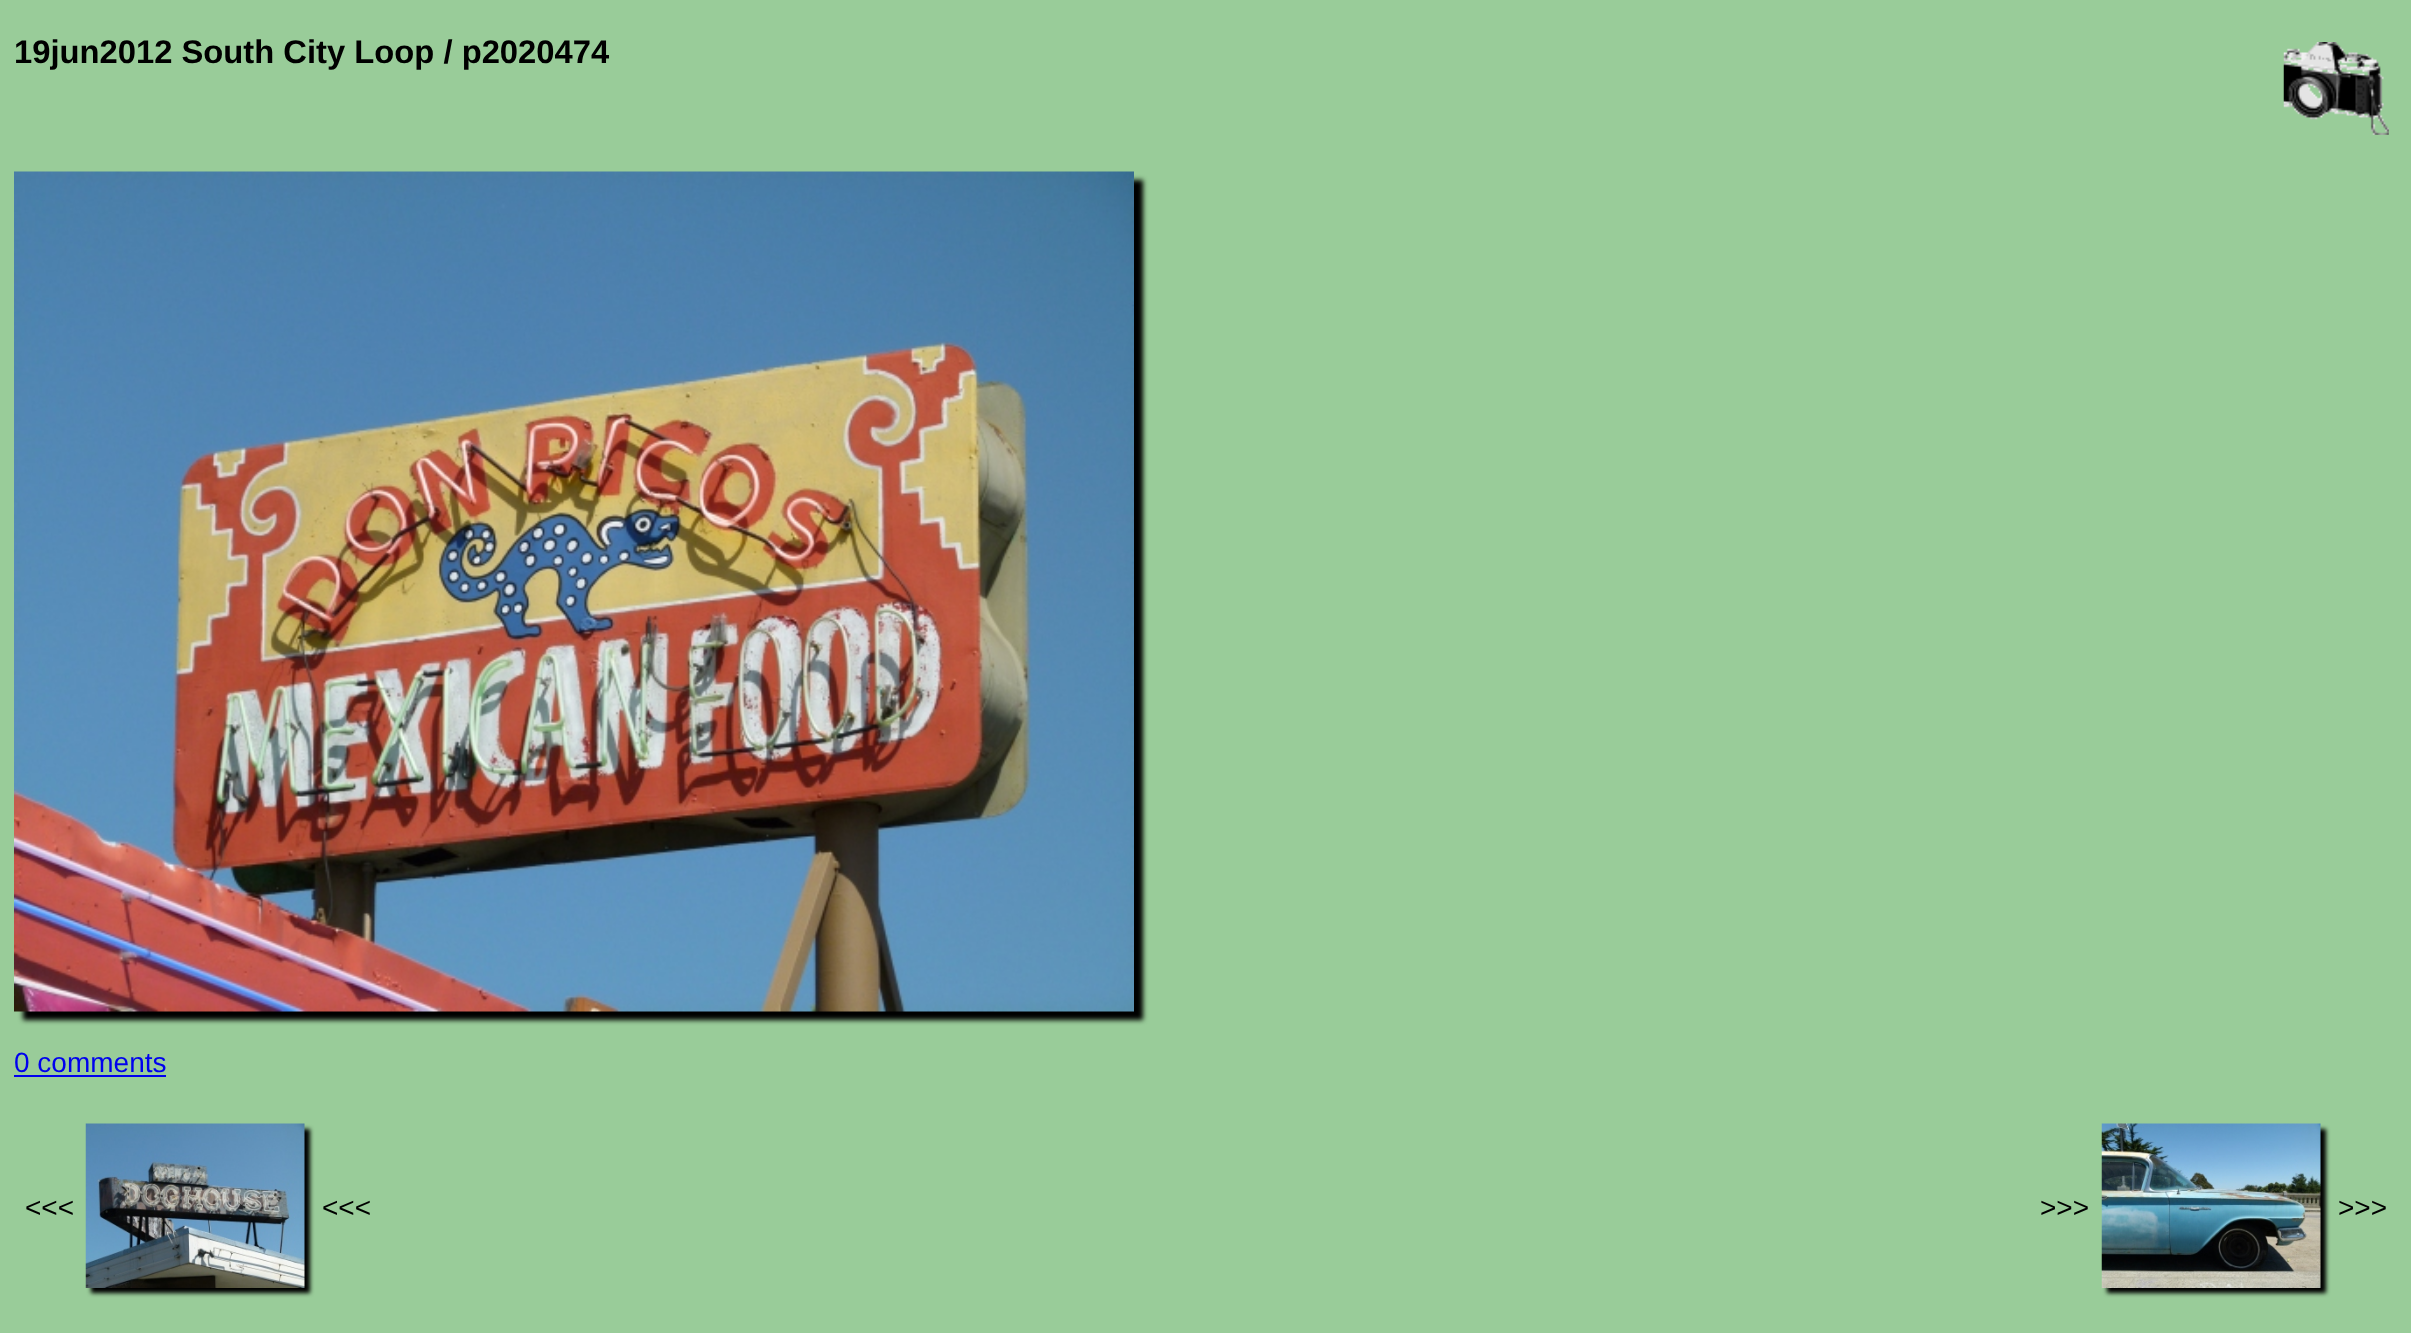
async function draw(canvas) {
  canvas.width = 2411;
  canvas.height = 1333;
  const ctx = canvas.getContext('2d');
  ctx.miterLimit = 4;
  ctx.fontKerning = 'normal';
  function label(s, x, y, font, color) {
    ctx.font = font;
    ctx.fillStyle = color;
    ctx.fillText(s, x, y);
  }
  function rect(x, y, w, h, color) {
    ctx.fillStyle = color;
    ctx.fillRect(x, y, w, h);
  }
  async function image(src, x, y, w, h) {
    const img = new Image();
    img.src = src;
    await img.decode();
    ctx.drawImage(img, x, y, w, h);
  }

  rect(0, 0, 2411, 1333, '#9c9');
  label('19jun2012 South City Loop / p2020474', 14, 63, 'bold 32.75px Liberation Sans', '#000');
  await image('assets/img1.png', 2283, 42, 106, 93);
  ctx.filter = 'blur(2.5px)';
  ctx.beginPath();
  ctx.rect(23, 180, 1120, 840);
  ctx.fill();
  ctx.filter = 'none';
  await image('assets/img2.png', 14, 171, 1120, 841);
  label('0 comments', 14, 1072, '28px Liberation Sans', '#00e');
  rect(14, 1075, 152, 2, '#00e');
  label('<<<', 25, 1217, '28px Liberation Sans', '#000');
  ctx.filter = 'blur(2px)';
  ctx.beginPath();
  ctx.rect(91, 1129, 219, 164);
  ctx.fill();
  ctx.filter = 'none';
  await image('assets/img3.png', 85, 1123, 220, 165);
  label('<<<', 322, 1217, '28px Liberation Sans', '#000');
  label('>>>', 2040, 1217, '28px Liberation Sans', '#000');
  ctx.filter = 'blur(2px)';
  ctx.beginPath();
  ctx.rect(2107, 1129, 219, 164);
  ctx.fill();
  ctx.filter = 'none';
  await image('assets/img4.png', 2101, 1123, 220, 165);
  label('>>>', 2338, 1217, '28px Liberation Sans', '#000');
}

draw(document.querySelector('canvas'));
